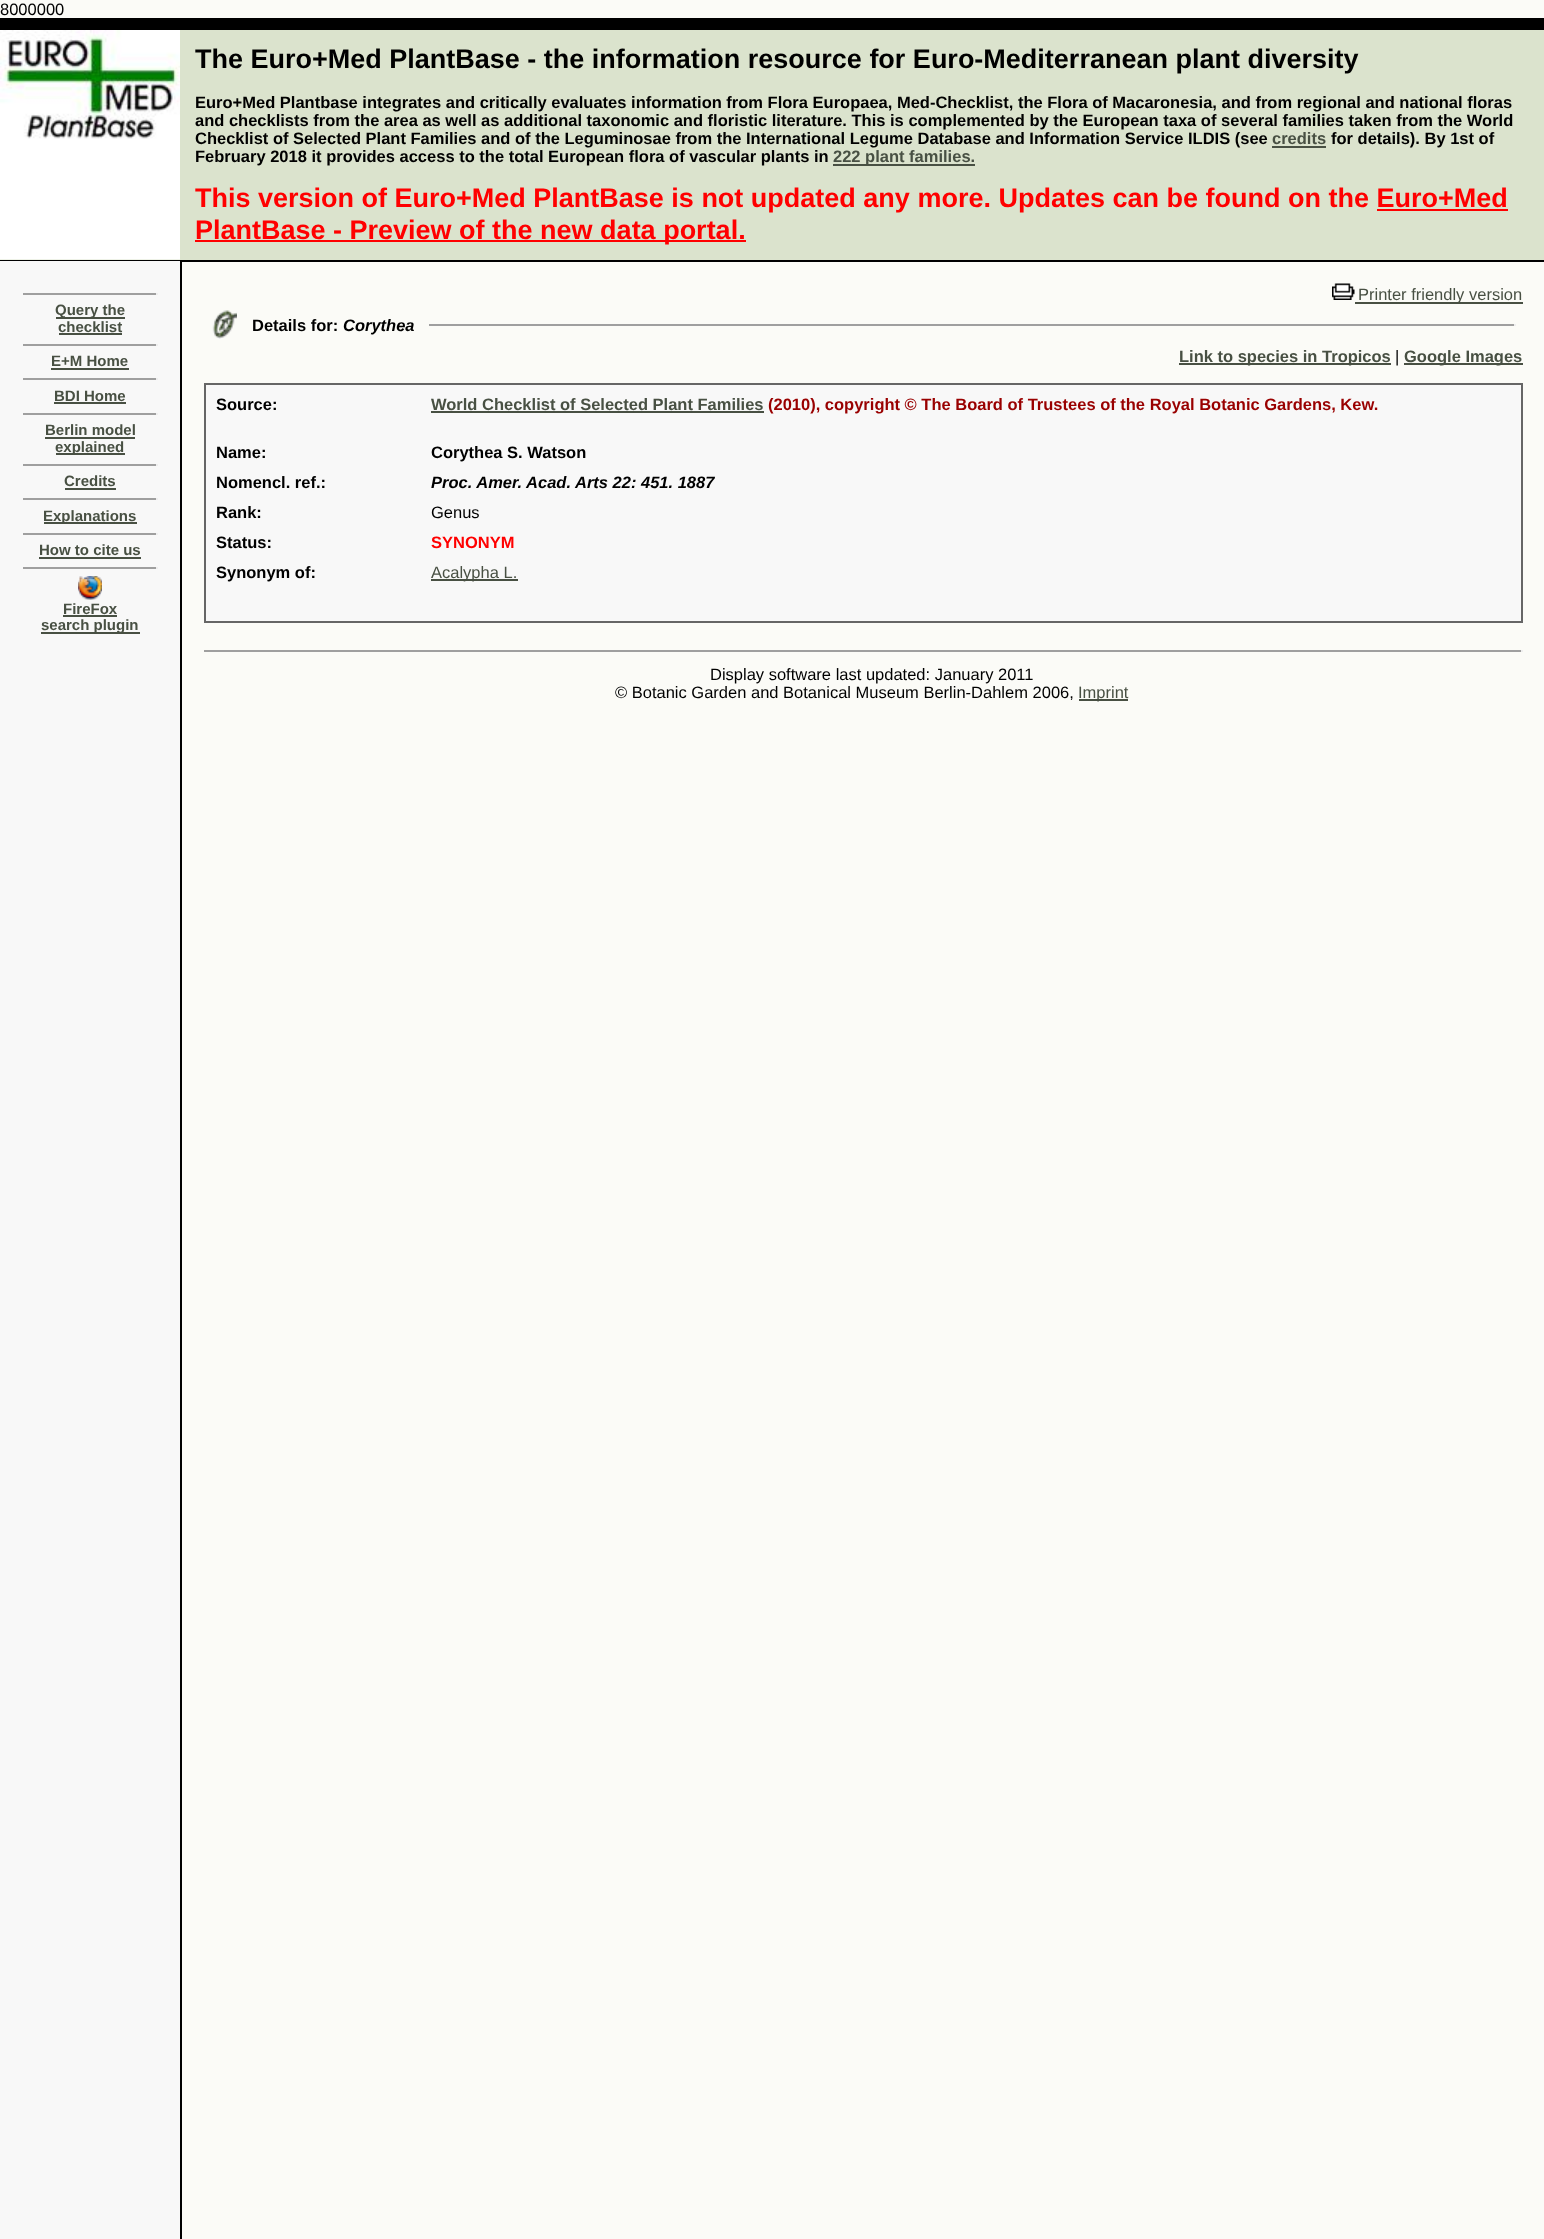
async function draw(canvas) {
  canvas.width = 1544;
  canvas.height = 2239;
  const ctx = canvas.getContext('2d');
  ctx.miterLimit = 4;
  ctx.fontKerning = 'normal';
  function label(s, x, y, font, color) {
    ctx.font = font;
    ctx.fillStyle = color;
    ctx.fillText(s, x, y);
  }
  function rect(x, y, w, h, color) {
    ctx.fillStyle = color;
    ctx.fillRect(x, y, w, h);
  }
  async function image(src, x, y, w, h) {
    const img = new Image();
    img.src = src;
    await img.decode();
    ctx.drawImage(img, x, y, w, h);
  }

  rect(0, 0, 1544, 2239, '#fbfbf7');
  label('8000000', 0, 15, '16.5px Liberation Sans', '#000');
  rect(0, 18, 1544, 12, '#000');
  rect(0, 30, 1544, 230, '#dbe3cd');
  await image('assets/img1.png', 0, 30, 180, 230);
  label('The Euro+Med PlantBase - the information resource for Euro-Mediterranean plant diversity', 195, 68, 'bold 27px Liberation Sans', '#000');
  label('Euro+Med Plantbase integrates and critically evaluates information from Flora Europaea, Med-Checklist, the Flora of Macaronesia, and from regional and national floras', 195, 108, 'bold 16.5px Liberation Sans', '#000');
  label('and checklists from the area as well as additional taxonomic and floristic literature. This is complemented by the European taxa of several families taken from the World', 195, 126, 'bold 16.5px Liberation Sans', '#000');
  label('Checklist of Selected Plant Families and of the Leguminosae from the International Legume Database and Information Service ILDIS (see', 195, 144, 'bold 16.5px Liberation Sans', '#000');
  label('credits', 1272, 144, 'bold 16.5px Liberation Sans', '#485043');
  rect(1272, 146, 54, 2, '#485043');
  label('for details). By 1st of', 1331, 144, 'bold 16.5px Liberation Sans', '#000');
  label('February 2018 it provides access to the total European flora of vascular plants in', 195, 162, 'bold 16.5px Liberation Sans', '#000');
  rect(833, 164, 142, 2, '#485043');
  label('222 plant families.', 833, 162, 'bold 16.5px Liberation Sans', '#485043');
  label('This version of Euro+Med PlantBase is not updated any more. Updates can be found on the Euro+Med', 195, 207, 'bold 27px Liberation Sans', '#f00');
  rect(1377, 209, 131, 2, '#f00');
  rect(195, 240, 551, 2, '#f00');
  label('PlantBase - Preview of the new data portal.', 195, 239, 'bold 27px Liberation Sans', '#f00');
  rect(0, 260, 182, 1, '#000');
  rect(182, 260, 1362, 2, '#000');
  rect(0, 261, 180, 1978, '#f8f8f8');
  rect(23, 293, 135, 2, '#9f9f9f');
  rect(156, 293, 2, 2, '#eee');
  rect(56, 317, 69, 2, '#485043');
  label('Query the', 55, 315, 'bold 15px Liberation Sans', '#485043');
  label('checklist', 58, 332, 'bold 15px Liberation Sans', '#485043');
  rect(59, 333, 63, 2, '#485043');
  rect(23, 344, 135, 2, '#9f9f9f');
  rect(156, 344, 2, 2, '#eee');
  label('E+M Home', 51, 366, 'bold 15px Liberation Sans', '#485043');
  rect(51, 368, 78, 2, '#485043');
  rect(23, 378, 135, 2, '#9f9f9f');
  rect(156, 378, 2, 2, '#eee');
  label('BDI Home', 54, 401, 'bold 15px Liberation Sans', '#485043');
  rect(54, 402, 72, 2, '#485043');
  rect(23, 413, 135, 2, '#9f9f9f');
  rect(156, 413, 2, 2, '#eee');
  label('Berlin model', 45, 435, 'bold 15px Liberation Sans', '#485043');
  rect(45, 437, 90, 2, '#485043');
  rect(56, 453, 69, 2, '#485043');
  label('explained', 55, 452, 'bold 15px Liberation Sans', '#485043');
  rect(23, 464, 135, 2, '#9f9f9f');
  rect(156, 464, 2, 2, '#eee');
  label('Credits', 64, 486, 'bold 15px Liberation Sans', '#485043');
  rect(65, 488, 51, 2, '#485043');
  rect(23, 498, 135, 2, '#9f9f9f');
  rect(156, 498, 2, 2, '#eee');
  rect(44, 522, 93, 2, '#485043');
  label('Explanations', 43, 521, 'bold 15px Liberation Sans', '#485043');
  rect(23, 533, 135, 2, '#9f9f9f');
  rect(156, 533, 2, 2, '#eee');
  label('How to cite us', 39, 555, 'bold 15px Liberation Sans', '#485043');
  rect(39, 557, 102, 2, '#485043');
  rect(23, 567, 135, 2, '#9f9f9f');
  rect(156, 567, 2, 2, '#eee');
  await image('assets/img2.png', 78, 576, 24, 24);
  label('FireFox', 63, 614, 'bold 15px Liberation Sans', '#485043');
  rect(63, 615, 54, 2, '#485043');
  rect(41, 632, 99, 2, '#485043');
  label('search plugin', 41, 630, 'bold 15px Liberation Sans', '#485043');
  rect(180, 261, 2, 1978, '#000');
  await image('assets/img3.png', 1332, 283, 23, 17);
  rect(1355, 302, 168, 2, '#485043');
  label('Printer friendly version', 1358, 300, '16.5px Liberation Sans', '#485043');
  await image('assets/img4.png', 212, 310, 25, 29);
  label('Details for:', 252, 331, 'bold 16.5px Liberation Sans', '#000');
  label('Corythea', 343, 331, 'italic bold 16.5px Liberation Sans', '#000');
  rect(429, 324, 1086, 2, '#9f9f9f');
  rect(1514, 324, 2, 2, '#eee');
  rect(1179, 363, 212, 2, '#485043');
  label('Link to species in Tropicos', 1179, 362, 'bold 16.5px Liberation Sans', '#485043');
  label('|', 1395, 362, '16.5px Liberation Sans', '#000');
  rect(1404, 363, 119, 2, '#485043');
  label('Google Images', 1404, 362, 'bold 16.5px Liberation Sans', '#485043');
  rect(204, 383, 1319, 2, '#666');
  rect(1521, 383, 2, 240, '#666');
  rect(204, 621, 1319, 2, '#666');
  rect(204, 383, 2, 240, '#666');
  rect(206, 385, 1315, 236, '#f8f8f8');
  label('Source:', 216, 410, 'bold 16.5px Liberation Sans', '#000');
  label('World Checklist of Selected Plant Families', 431, 410, 'bold 16.5px Liberation Sans', '#485043');
  rect(431, 411, 333, 2, '#485043');
  label('(2010), copyright © The Board of Trustees of the Royal Botanic Gardens, Kew.', 768, 410, 'bold 16.5px Liberation Sans', '#900');
  label('Name:', 216, 458, 'bold 16.5px Liberation Sans', '#000');
  label('Corythea S. Watson', 431, 458, 'bold 16.5px Liberation Sans', '#000');
  label('Nomencl. ref.:', 216, 488, 'bold 16.5px Liberation Sans', '#000');
  label('Proc. Amer. Acad. Arts 22: 451. 1887', 431, 488, 'italic bold 16.5px Liberation Sans', '#000');
  label('Rank:', 216, 518, 'bold 16.5px Liberation Sans', '#000');
  label('Genus', 431, 518, '16.5px Liberation Sans', '#000');
  label('Status:', 216, 548, 'bold 16.5px Liberation Sans', '#000');
  label('SYNONYM', 431, 548, 'bold 16.5px Liberation Sans', '#f00');
  label('Synonym of:', 216, 578, 'bold 16.5px Liberation Sans', '#000');
  rect(431, 579, 87, 2, '#485043');
  label('Acalypha L.', 431, 578, '16.5px Liberation Sans', '#485043');
  rect(204, 650, 1319, 2, '#9f9f9f');
  rect(1521, 650, 2, 2, '#eee');
  label('Display software last updated: January 2011', 710, 680, '16.5px Liberation Sans', '#000');
  label('© Botanic Garden and Botanical Museum Berlin-Dahlem 2006,', 615, 698, '16.5px Liberation Sans', '#000');
  rect(1079, 699, 49, 2, '#485043');
  label('Imprint', 1078, 698, '16.5px Liberation Sans', '#485043');
}

draw(document.querySelector('canvas'));
